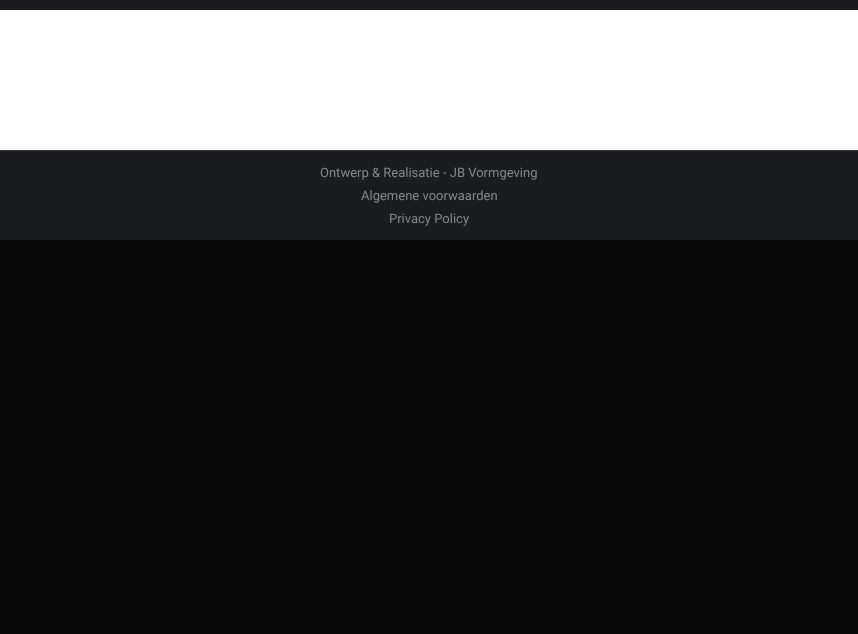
async function draw(canvas) {
  canvas.width = 858;
  canvas.height = 634;
  const ctx = canvas.getContext('2d');
  ctx.miterLimit = 4;
  ctx.fontKerning = 'normal';
  function label(s, x, y, font, color) {
    ctx.font = font;
    ctx.fillStyle = color;
    ctx.fillText(s, x, y);
  }
  function rect(x, y, w, h, color) {
    ctx.fillStyle = color;
    ctx.fillRect(x, y, w, h);
  }

  rect(0, 0, 858, 634, '#0a0a0a');
  rect(0, 10, 858, 140, '#fff');
  rect(0, 0, 858, 10, '#1a1c20');
  rect(0, 151, 858, 89, '#1a1c20');
  rect(0, 150, 858, 1, '#35373b');
  label('Ontwerp & Realisatie - JB Vormgeving', 320, 177, '13px Roboto', '#85868c');
  label('Algemene voorwaarden', 361, 200, '13px Roboto', '#85868c');
  label('Privacy Policy', 389, 223, '13px Roboto', '#85868c');
}

draw(document.querySelector('canvas'));
